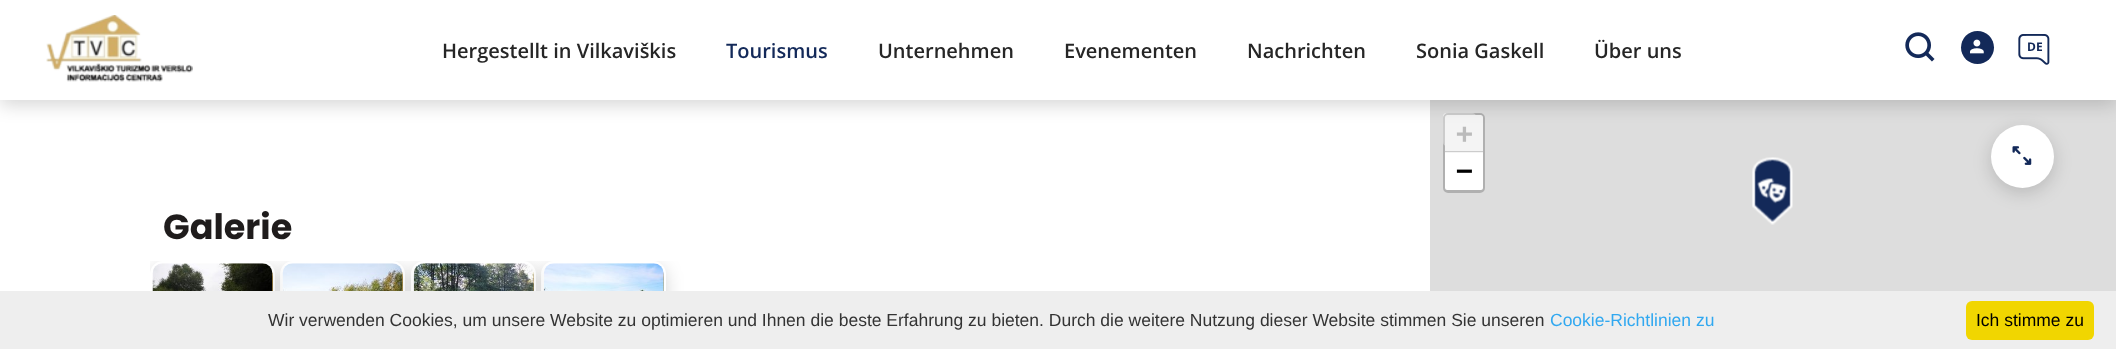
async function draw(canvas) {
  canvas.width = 2116;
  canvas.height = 349;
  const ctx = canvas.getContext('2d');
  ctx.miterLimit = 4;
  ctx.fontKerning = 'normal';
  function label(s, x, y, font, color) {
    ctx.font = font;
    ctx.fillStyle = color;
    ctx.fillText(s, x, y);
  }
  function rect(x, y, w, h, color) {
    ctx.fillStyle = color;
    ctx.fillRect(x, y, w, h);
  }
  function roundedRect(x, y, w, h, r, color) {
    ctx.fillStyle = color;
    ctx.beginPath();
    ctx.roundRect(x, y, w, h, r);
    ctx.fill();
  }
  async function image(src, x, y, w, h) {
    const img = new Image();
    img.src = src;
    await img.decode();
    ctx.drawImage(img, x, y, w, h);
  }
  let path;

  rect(0, 0, 2116, 349, '#fff');
  rect(1430, 100, 686, 191, '#ddd');
  roundedRect(1443, 113, 33, 33, 4, '#fff');
  ctx.beginPath();
  ctx.roundRect(1444.5, 114.5, 39, 77, 3.5);
  ctx.strokeStyle = '#00000033';
  ctx.lineWidth = 3;
  ctx.stroke();
  ctx.fillStyle = '#f4f4f4';
  ctx.beginPath();
  ctx.roundRect(1445, 115, 38, 38, [2.5, 2.5, 0, 0]);
  ctx.fill();
  ctx.fillStyle = '#00000029';
  ctx.filter = 'blur(9px)';
  ctx.beginPath();
  ctx.roundRect(1991, 130, 63, 63, 31.5);
  ctx.fill();
  ctx.filter = 'none';
  ctx.fillStyle = '#fff';
  ctx.beginPath();
  ctx.arc(2022.5, 156.5, 31.5, 0, 2 * Math.PI);
  ctx.fill();
  ctx.fillStyle = '#00000029';
  ctx.filter = 'blur(9px)';
  ctx.beginPath();
  ctx.rect(0, 5, 2116, 100);
  ctx.fill();
  ctx.filter = 'none';
  rect(0, 0, 2116, 100, '#fff');
  await image('assets/img1.png', 46, 15, 147, 67);
  label('Hergestellt in Vilkaviškis', 442, 58, '600 20px Open Sans', '#262626');
  label('Tourismus', 726, 58, '600 20px Open Sans', '#132959');
  label('Unternehmen', 878, 58, '600 20px Open Sans', '#262626');
  label('Evenementen', 1064, 58, '600 20px Open Sans', '#262626');
  label('Nachrichten', 1247, 58, '600 20px Open Sans', '#262626');
  label('Sonia Gaskell', 1416, 58, '600 20px Open Sans', '#262626');
  label('Über uns', 1594, 58, '600 20px Open Sans', '#262626');
  await image('assets/img2.png', 1905, 32, 30, 30);
  ctx.fillStyle = '#132959';
  ctx.beginPath();
  ctx.arc(1977.5, 47.5, 16.5, 0, 2 * Math.PI);
  ctx.fill();
  await image('assets/img3.png', 1970, 39, 14, 15);
  label('DE', 2027, 51, 'bold 12px Open Sans', '#132959');
  await image('assets/img4.png', 2018, 34, 32, 31);
  rect(1445, 151, 38, 1, '#ccc');
  label('+', 1456, 143, 'bold 28px DejaVu Sans Mono', '#bbb');
  ctx.fillStyle = '#fff';
  ctx.beginPath();
  ctx.roundRect(1445, 153, 38, 37, [0, 0, 2.5, 2.5]);
  ctx.fill();
  label('−', 1456, 180, 'bold 28px DejaVu Sans Mono', '#000');
  await image('assets/img5.png', 1752, 157, 41, 68);
  await image('assets/img6.png', 2012, 146, 20, 19);
  label('Galerie', 163, 239, 'bold 35px Poppins', '#1f1c1c');
  ctx.save();
  ctx.beginPath();
  ctx.rect(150, 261, 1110, 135);
  ctx.clip();
  path = new Path2D('M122 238H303V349H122ZM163 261H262C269 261 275 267 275 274V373C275 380 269 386 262 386H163C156 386 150 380 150 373V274C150 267 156 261 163 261Z');
  ctx.clip(path, 'evenodd');
  ctx.fillStyle = '#00000029';
  ctx.filter = 'blur(9px)';
  ctx.beginPath();
  ctx.roundRect(150, 266, 125, 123, 13);
  ctx.fill();
  ctx.filter = 'none';
  ctx.restore();
  roundedRect(153, 264, 120, 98, 13, '#b99852');
  await image('assets/img7.png', 152, 263, 121, 28);
  ctx.save();
  ctx.beginPath();
  ctx.rect(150, 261, 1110, 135);
  ctx.clip();
  path = new Path2D('M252 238H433V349H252ZM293 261H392C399 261 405 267 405 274V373C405 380 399 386 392 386H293C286 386 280 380 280 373V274C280 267 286 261 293 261Z');
  ctx.clip(path, 'evenodd');
  ctx.fillStyle = '#00000029';
  ctx.filter = 'blur(9px)';
  ctx.beginPath();
  ctx.roundRect(280, 266, 125, 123, 13);
  ctx.fill();
  ctx.filter = 'none';
  ctx.restore();
  roundedRect(283, 264, 120, 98, 13, '#b99852');
  await image('assets/img8.png', 282, 263, 121, 28);
  ctx.save();
  ctx.beginPath();
  ctx.rect(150, 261, 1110, 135);
  ctx.clip();
  path = new Path2D('M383 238H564V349H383ZM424 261H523C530 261 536 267 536 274V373C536 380 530 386 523 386H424C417 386 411 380 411 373V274C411 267 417 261 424 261Z');
  ctx.clip(path, 'evenodd');
  ctx.fillStyle = '#00000029';
  ctx.filter = 'blur(9px)';
  ctx.beginPath();
  ctx.roundRect(411, 266, 125, 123, 13);
  ctx.fill();
  ctx.filter = 'none';
  ctx.restore();
  roundedRect(414, 264, 120, 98, 13, '#b99852');
  await image('assets/img9.png', 413, 263, 121, 28);
  ctx.save();
  ctx.beginPath();
  ctx.rect(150, 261, 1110, 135);
  ctx.clip();
  path = new Path2D('M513 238H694V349H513ZM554 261H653C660 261 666 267 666 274V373C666 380 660 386 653 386H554C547 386 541 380 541 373V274C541 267 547 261 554 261Z');
  ctx.clip(path, 'evenodd');
  ctx.fillStyle = '#00000029';
  ctx.filter = 'blur(9px)';
  ctx.beginPath();
  ctx.roundRect(541, 266, 125, 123, 13);
  ctx.fill();
  ctx.filter = 'none';
  ctx.restore();
  roundedRect(544, 264, 120, 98, 13, '#b99852');
  await image('assets/img10.png', 543, 263, 121, 28);
  rect(0, 291, 2116, 58, '#eee');
  label('Wir verwenden Cookies, um unsere Website zu optimieren und Ihnen die beste Erfahrung zu bieten. Durch die weitere Nutzung dieser Website stimmen Sie unseren', 268, 326, '17.5px Liberation Sans', '#333');
  label('Cookie-Richtlinien zu', 1550, 326, '17.5px Liberation Sans', '#31a8f0');
  roundedRect(1966, 301, 128, 39, 6, '#f1d600');
  label('Ich stimme zu', 1976, 326, '17.5px Liberation Sans', '#000');
}

draw(document.querySelector('canvas'));
